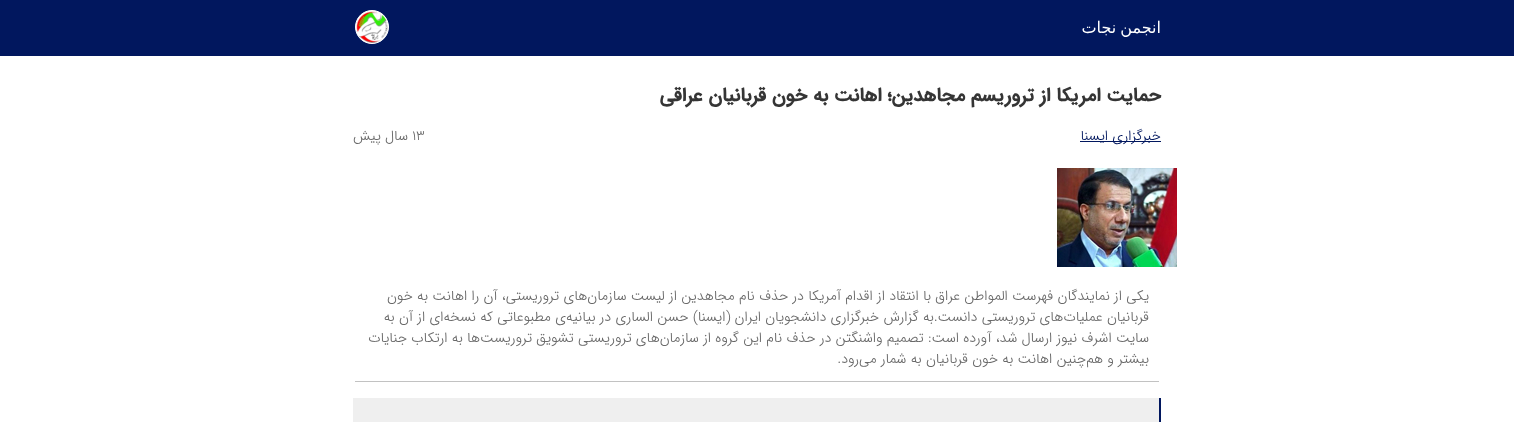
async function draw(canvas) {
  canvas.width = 1514;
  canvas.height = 422;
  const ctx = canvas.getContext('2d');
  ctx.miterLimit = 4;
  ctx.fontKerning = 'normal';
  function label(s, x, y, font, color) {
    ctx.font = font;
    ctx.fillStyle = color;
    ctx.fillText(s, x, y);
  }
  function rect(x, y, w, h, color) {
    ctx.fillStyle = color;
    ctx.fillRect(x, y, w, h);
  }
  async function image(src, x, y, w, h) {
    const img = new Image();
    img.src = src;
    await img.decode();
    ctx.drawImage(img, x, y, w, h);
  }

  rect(0, 0, 1514, 422, '#fff');
  rect(0, 0, 1514, 56, '#01175e');
  ctx.wordSpacing = '-1px';
  ctx.direction = 'rtl';
  label('انجمن نجات', 1161, 33, '16px DejaVu Sans', '#fff');
  ctx.beginPath();
  ctx.arc(372, 27, 16.5, 0, 2 * Math.PI);
  ctx.fill();
  ctx.strokeStyle = '#fff';
  ctx.stroke();
  await image('assets/img1.png', 356, 11, 32, 32);
  ctx.wordSpacing = '0px';
  label('حمایت امریکا از تروریسم مجاهدین؛ اهانت به خون قربانیان عراقی', 1161, 101, 'bold 19.2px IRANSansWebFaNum', '#353535');
  rect(1080, 141, 81, 1, '#01175e');
  label('خبرگزاری ایسنا', 1161, 140, '300 14px IRANSansWebFaNum', '#01175e');
  ctx.direction = 'ltr';
  label('13', 412, 140, '300 14px IRANSansWebFaNum', '#696969');
  ctx.direction = 'rtl';
  label('سال پیش', 408, 140, '300 14px IRANSansWebFaNum', '#696969');
  await image('assets/img2.png', 1057, 168, 120, 99);
  rect(355, 381, 804, 1, '#c2c2c2');
  label('یکی از نمایندگان فهرست المواطن عراق با انتقاد از اقدام آمریکا در حذف نام مجاهدین از لیست سازمان‌های تروریستی، آن را اهانت به خون', 1149, 300, '300 14px IRANSansWebFaNum', '#696969');
  label('قربانیان عملیات‌های تروریستی دانست.به گزارش خبرگزاری دانشجویان ایران (ایسنا) حسن الساری در بیانیه‌ی مطبوعاتی که نسخه‌ای از آن به', 1149, 321, '300 14px IRANSansWebFaNum', '#696969');
  label('سایت اشرف نیوز ارسال شد، آورده است: تصمیم واشنگتن در حذف نام این گروه از سازمان‌های تروریستی تشویق تروریست‌ها به ارتکاب جنایات', 1149, 342, '300 14px IRANSansWebFaNum', '#696969');
  label('بیشتر و هم‌چنین اهانت به خون قربانیان به شمار می‌رود.', 1149, 363, '300 14px IRANSansWebFaNum', '#696969');
  rect(353, 398, 806, 24, '#efefef');
  rect(1159, 398, 2, 24, '#01175e');
}

draw(document.querySelector('canvas'));
